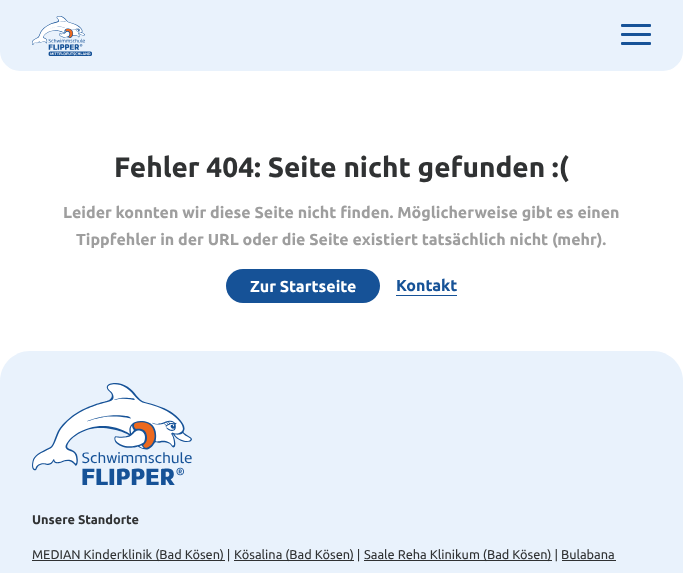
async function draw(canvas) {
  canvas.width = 683;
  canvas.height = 573;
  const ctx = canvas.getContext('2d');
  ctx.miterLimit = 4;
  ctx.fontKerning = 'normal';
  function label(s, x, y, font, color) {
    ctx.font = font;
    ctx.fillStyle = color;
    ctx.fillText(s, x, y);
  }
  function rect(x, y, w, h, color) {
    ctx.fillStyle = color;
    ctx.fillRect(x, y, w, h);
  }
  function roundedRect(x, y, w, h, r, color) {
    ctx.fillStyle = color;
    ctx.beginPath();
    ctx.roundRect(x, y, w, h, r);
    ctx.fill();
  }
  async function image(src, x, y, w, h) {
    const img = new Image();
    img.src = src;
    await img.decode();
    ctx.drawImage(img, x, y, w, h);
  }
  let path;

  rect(0, 0, 683, 573, '#fff');
  ctx.fillStyle = '#e9f2fc';
  path = new Path2D('M-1-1H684V51C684 62.5 674.5 72 663 72H20C8.5 72-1 62.5-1 51Z');
  ctx.fill(path);
  ctx.strokeStyle = '#fff';
  ctx.lineWidth = 2;
  ctx.stroke(path);
  await image('assets/img1.png', 32, 16, 60, 40);
  roundedRect(621, 24, 30, 3, 1, '#165297');
  roundedRect(621, 33, 30, 3, 1, '#165297');
  roundedRect(621, 42, 30, 3, 1, '#165297');
  label('Fehler 404: Seite nicht gefunden :(', 114, 177, 'bold 28px Ubuntu', '#303233');
  label('Leider konnten wir diese Seite nicht finden. Möglicherweise gibt es einen', 63, 218, 'bold 16px Ubuntu', '#9e9e9e');
  label('Tippfehler in der URL oder die Seite existiert tatsächlich nicht (mehr).', 76, 245, 'bold 16px Ubuntu', '#9e9e9e');
  roundedRect(226, 269, 154, 34, 17, '#165297');
  label('Zur Startseite', 250, 292, 'bold 16px Ubuntu', '#fff');
  label('Kontakt', 396, 291, 'bold 16px Ubuntu', '#165297');
  rect(396, 295, 61, 1, '#165297');
  ctx.fillStyle = '#e9f2fc';
  path = new Path2D('M30 351H653C669.5 351 683 364.5 683 381V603H0V381C0 364.5 13.5 351 30 351Z');
  ctx.fill(path);
  await image('assets/img2.png', 32, 383, 160, 102);
  label('Unsere Standorte', 32, 524, 'bold 12.75px Ubuntu', '#303233');
  rect(32, 560, 193, 1, '#303233');
  label('MEDIAN Kinderklinik (Bad Kösen) |', 32, 559, '12.75px Ubuntu', '#303233');
  rect(234, 560, 120, 1, '#303233');
  label('Kösalina (Bad Kösen) |', 234, 559, '12.75px Ubuntu', '#303233');
  rect(364, 560, 188, 1, '#303233');
  label('Saale Reha Klinikum (Bad Kösen) | Bulabana', 364, 559, '12.75px Ubuntu', '#303233');
  rect(562, 560, 54, 1, '#303233');
}

draw(document.querySelector('canvas'));
